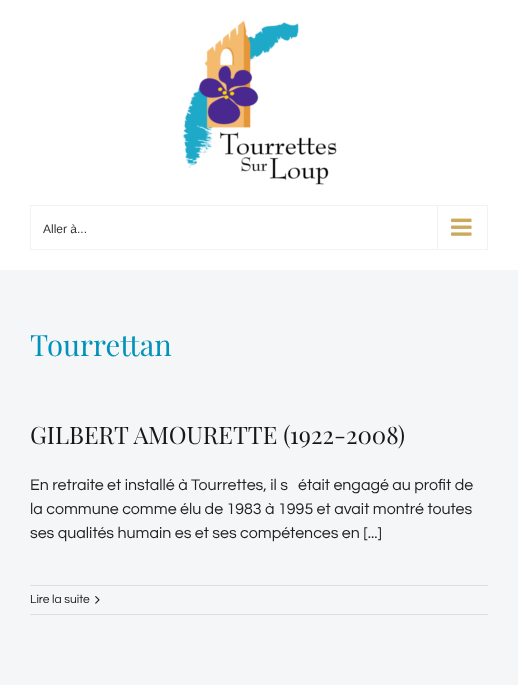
async function draw(canvas) {
  canvas.width = 518;
  canvas.height = 685;
  const ctx = canvas.getContext('2d');
  ctx.miterLimit = 4;
  ctx.fontKerning = 'normal';
  function label(s, x, y, font, color) {
    ctx.font = font;
    ctx.fillStyle = color;
    ctx.fillText(s, x, y);
  }
  function rect(x, y, w, h, color) {
    ctx.fillStyle = color;
    ctx.fillRect(x, y, w, h);
  }
  async function image(src, x, y, w, h) {
    const img = new Image();
    img.src = src;
    await img.decode();
    ctx.drawImage(img, x, y, w, h);
  }

  rect(0, 0, 518, 685, '#f4f6f8');
  rect(0, 0, 518, 270, '#fff');
  await image('assets/img1.png', 183, 20, 154, 165);
  ctx.strokeStyle = '#f2f2f2';
  ctx.strokeRect(30.5, 205.5, 457, 44);
  label('Aller à...', 43, 233, '12px Liberation Sans', '#333');
  rect(437, 206, 1, 43, '#f2f2f2');
  await image('assets/img2.png', 451, 218, 21, 18);
  label('Tourrettan', 30, 356, '29.25px Playfair Display', '#0092bb');
  label('GILBERT AMOURETTE (1922-2008)', 30, 444, '24px Playfair Display', '#171717');
  label('En retraite et installé à Tourrettes, il s', 30, 490, '16px Questrial', '#222');
  label('était engagé au profit de', 298, 490, '16px Questrial', '#222');
  label('la commune comme élu de 1983 à 1995 et avait montré toutes', 30, 514, '16px Questrial', '#222');
  label('ses qualités humain es et ses compétences en [...]', 30, 538, '16px Questrial', '#222');
  rect(30, 585, 458, 1, '#e0dede');
  rect(30, 614, 458, 1, '#e0dede');
  label('Lire la suite', 30, 603, '12px Questrial', '#171717');
  await image('assets/img3.png', 95, 596, 5, 8);
}

draw(document.querySelector('canvas'));
